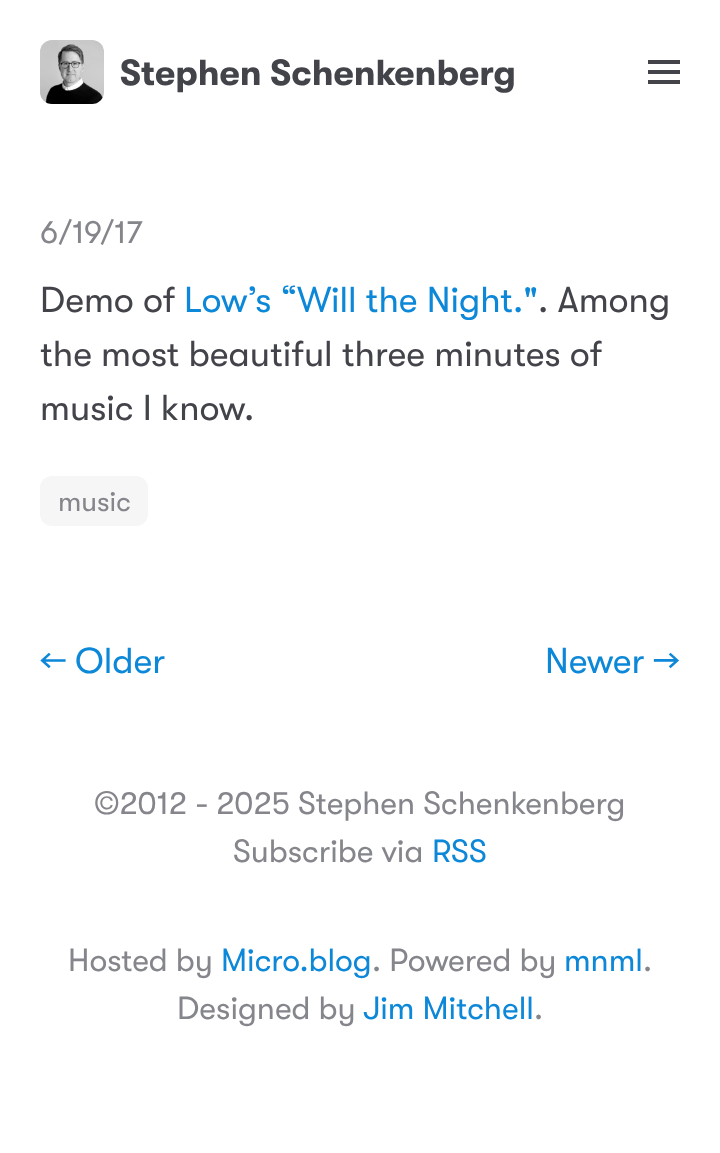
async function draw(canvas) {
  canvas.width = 720;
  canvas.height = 1153;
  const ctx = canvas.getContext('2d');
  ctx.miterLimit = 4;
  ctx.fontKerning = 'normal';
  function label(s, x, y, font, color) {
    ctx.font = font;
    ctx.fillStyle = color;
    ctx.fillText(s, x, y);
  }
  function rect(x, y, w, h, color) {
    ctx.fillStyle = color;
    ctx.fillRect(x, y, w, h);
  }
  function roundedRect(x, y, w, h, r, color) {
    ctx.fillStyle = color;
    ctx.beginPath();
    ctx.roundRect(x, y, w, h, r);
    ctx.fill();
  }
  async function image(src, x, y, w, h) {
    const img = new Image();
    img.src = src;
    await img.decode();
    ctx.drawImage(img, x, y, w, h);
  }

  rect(0, 0, 720, 1153, '#fff');
  await image('assets/img1.png', 40, 40, 64, 64);
  label('Stephen Schenkenberg', 120, 85, 'bold 36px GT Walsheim', '#42444a');
  rect(648, 60, 32, 4, '#42444a');
  rect(648, 70, 32, 4, '#42444a');
  rect(648, 80, 32, 4, '#42444a');
  label('6/19/17', 40, 243, '32px GT Walsheim', '#84868b');
  label('Demo of', 40, 312, '36px GT Walsheim', '#42444a');
  label('Low’s “Will the Night."', 184, 312, '36px GT Walsheim', '#0d88d8');
  label('. Among', 538, 312, '36px GT Walsheim', '#42444a');
  label('the most beautiful three minutes of', 40, 366, '36px GT Walsheim', '#42444a');
  label('music I know.', 40, 420, '36px GT Walsheim', '#42444a');
  roundedRect(40, 476, 108, 50, 12, '#f6f6f6');
  label('music', 58, 511, '28px GT Walsheim', '#84868b');
  label('← Older', 40, 673, '36px GT Walsheim', '#0d88d8');
  label('Newer →', 545, 673, '36px GT Walsheim', '#0d88d8');
  label('©2012 - 2025 Stephen Schenkenberg', 94, 814, '32px GT Walsheim', '#84868b');
  label('Subscribe via', 233, 862, '32px GT Walsheim', '#84868b');
  label('RSS', 432, 862, '32px GT Walsheim', '#0d88d8');
  label('Hosted by', 68, 971, '32px GT Walsheim', '#84868b');
  label('Micro.blog', 221, 971, '32px GT Walsheim', '#0d88d8');
  label('. Powered by', 372, 971, '32px GT Walsheim', '#84868b');
  label('mnml', 564, 971, '32px GT Walsheim', '#0d88d8');
  label('.', 643, 971, '32px GT Walsheim', '#84868b');
  label('Designed by', 177, 1019, '32px GT Walsheim', '#84868b');
  label('Jim Mitchell', 363, 1019, '32px GT Walsheim', '#0d88d8');
  label('.', 534, 1019, '32px GT Walsheim', '#84868b');
}

draw(document.querySelector('canvas'));
